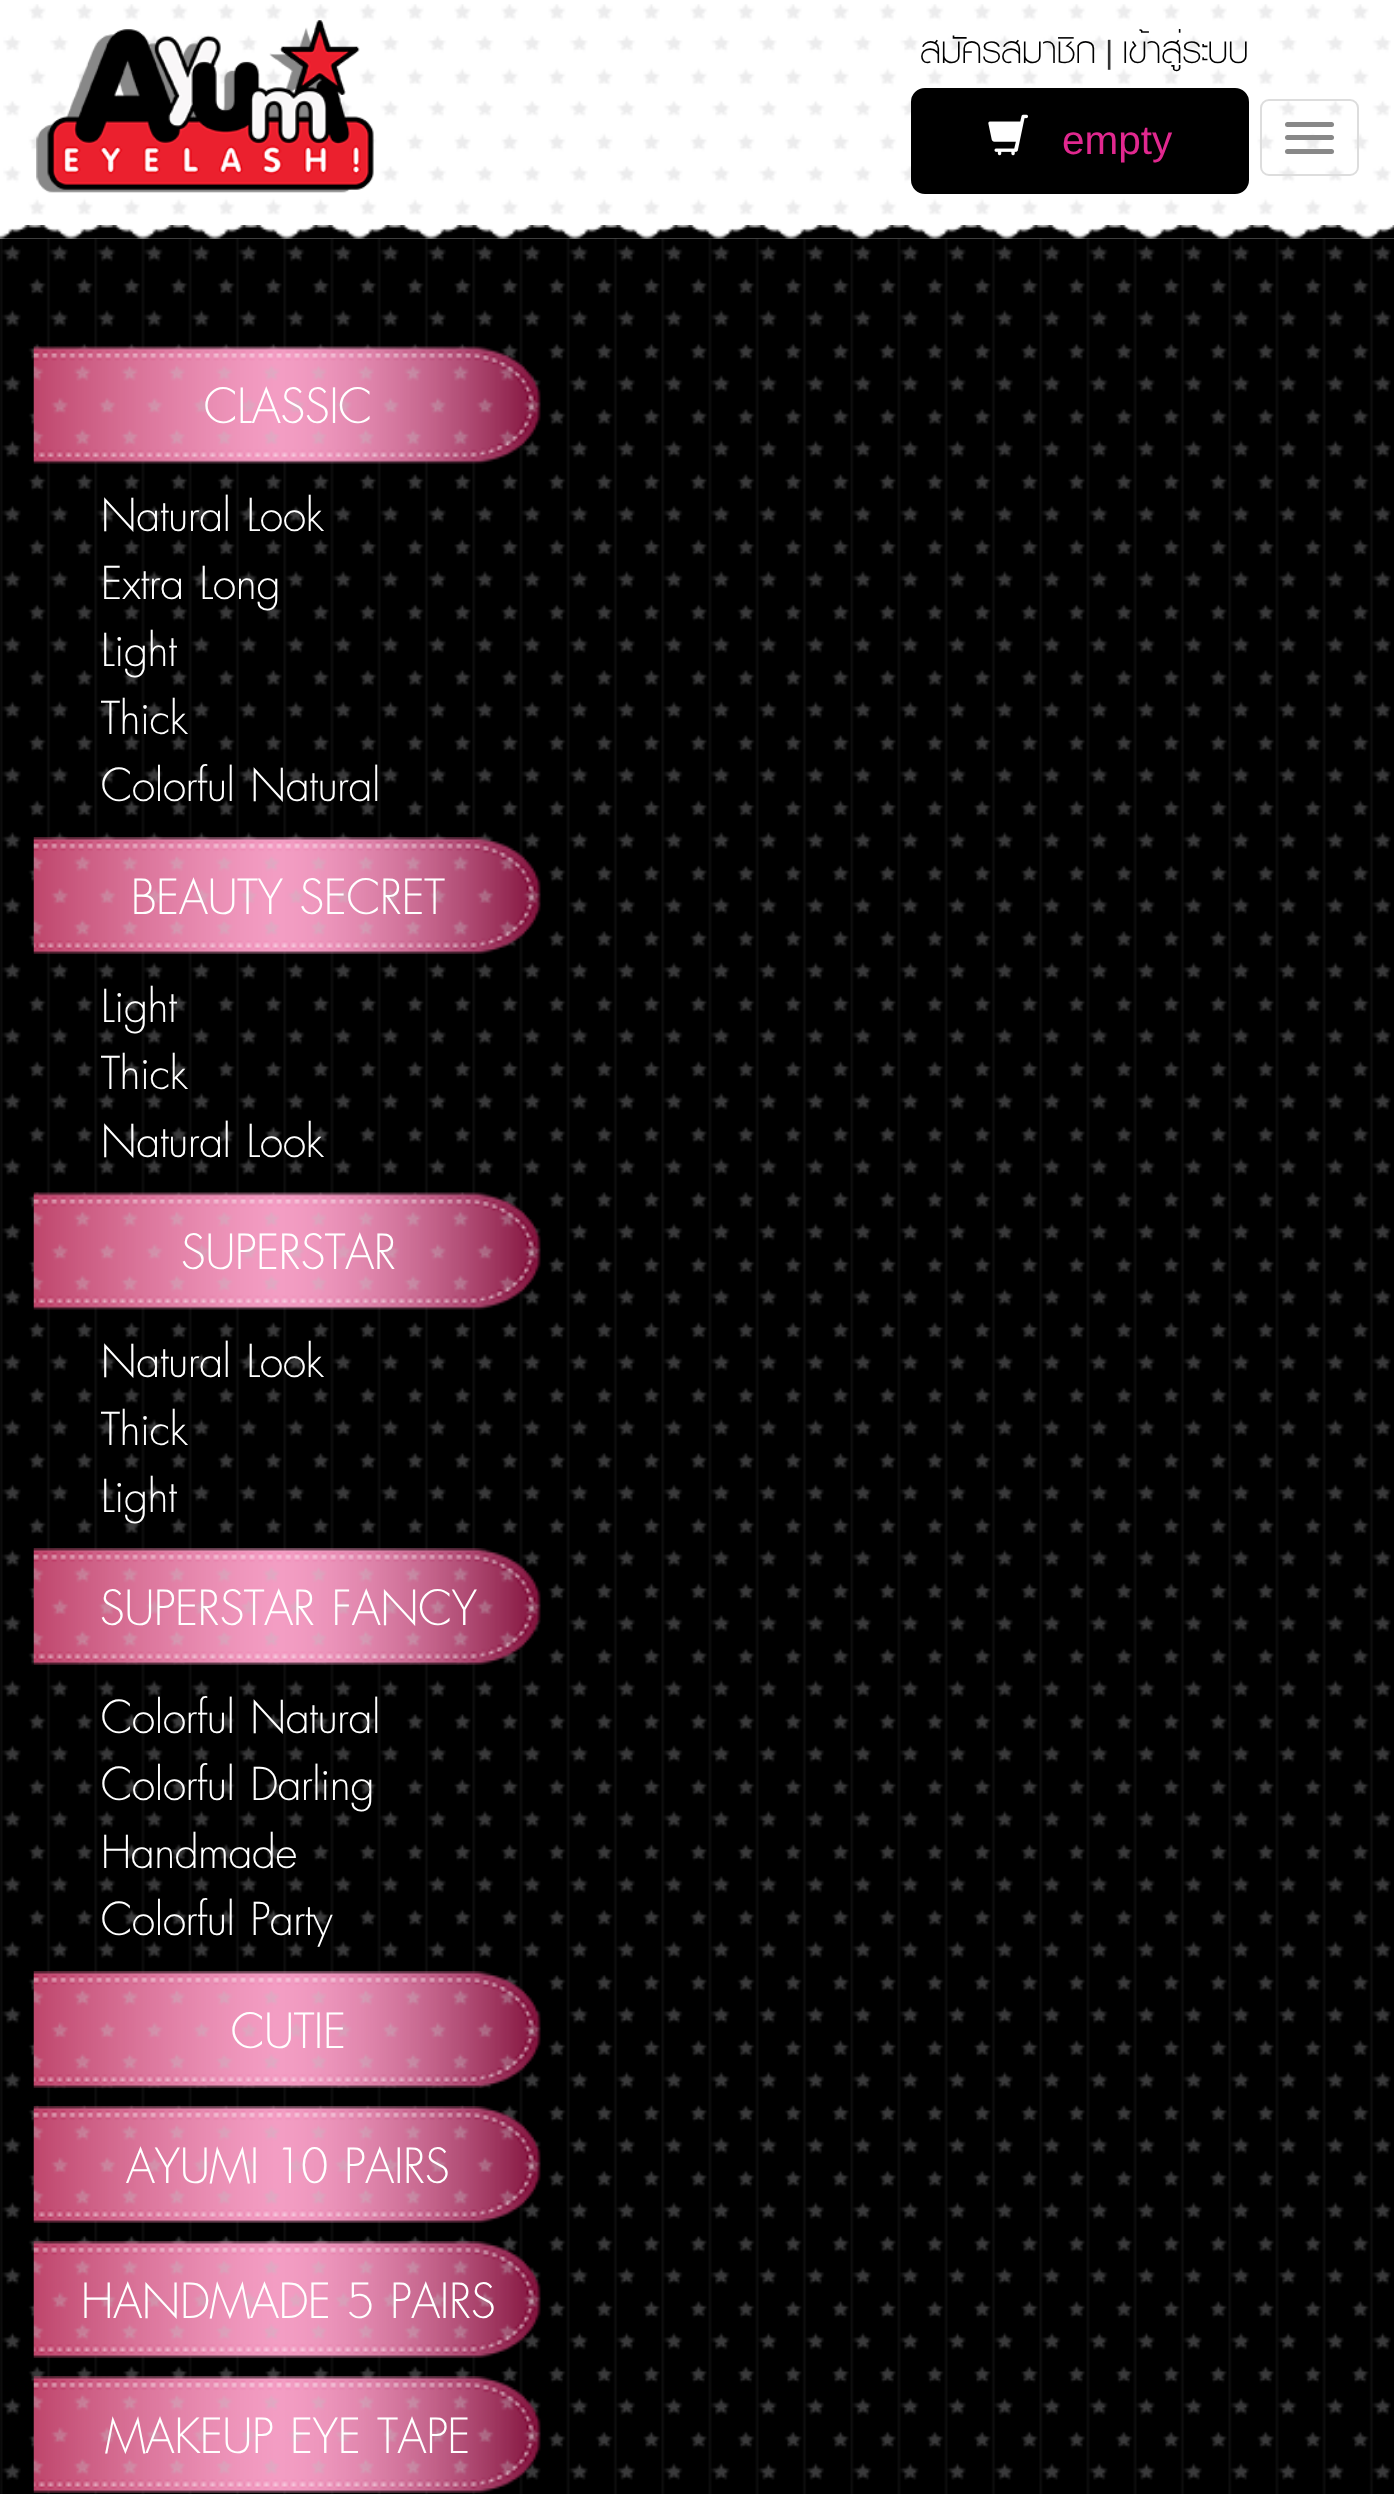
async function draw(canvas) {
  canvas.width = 1394;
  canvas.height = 2494;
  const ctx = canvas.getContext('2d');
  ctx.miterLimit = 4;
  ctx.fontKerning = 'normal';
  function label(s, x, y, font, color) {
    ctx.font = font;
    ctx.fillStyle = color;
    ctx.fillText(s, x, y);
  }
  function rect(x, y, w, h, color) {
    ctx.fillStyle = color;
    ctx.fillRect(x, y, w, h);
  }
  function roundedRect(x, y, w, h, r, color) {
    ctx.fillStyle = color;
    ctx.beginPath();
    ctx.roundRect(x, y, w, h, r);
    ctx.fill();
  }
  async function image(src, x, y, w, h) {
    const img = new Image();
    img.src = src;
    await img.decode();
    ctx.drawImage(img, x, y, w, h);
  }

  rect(0, 0, 1394, 2494, '#fff');
  await image('assets/img1.png', 3, 4, 1388, 211);
  await image('assets/img2.png', 36, 20, 338, 173);
  ctx.beginPath();
  ctx.roundRect(1261, 100, 97, 75, 8);
  ctx.strokeStyle = '#ddd';
  ctx.lineWidth = 2;
  ctx.stroke();
  roundedRect(1285, 122, 49, 5, 2.5, '#888');
  roundedRect(1285, 135, 49, 5, 2.5, '#888');
  roundedRect(1285, 149, 49, 5, 2.5, '#888');
  label('สมัครสมาชิก', 920, 63, '54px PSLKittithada', '#000');
  label('|', 1105, 63, '32px Liberation Sans', '#333');
  label('เข้าสู่ระบบ', 1122, 63, '54px PSLKittithada', '#000');
  ctx.beginPath();
  ctx.roundRect(912, 89, 336, 104, 13);
  ctx.fill();
  ctx.strokeStyle = '#000';
  ctx.stroke();
  await image('assets/img3.png', 988, 114, 40, 42);
  label('empty', 1062, 154, '40.5px Liberation Sans', '#e1288f');
  await image('assets/img5.png', 0, 238, 1394, 2256);
  await image('assets/img4.png', 0, 225, 1394, 14);
  await image('assets/img6.png', 33, 346, 508, 118);
  label('CLASSIC', 204, 423, '67.5px PSLKittithada', '#fff');
  label('Natural Look', 101, 531, '63px PSLKittithada', '#fff');
  label('Extra Long', 101, 599, '63px PSLKittithada', '#fff');
  label('Light', 101, 666, '63px PSLKittithada', '#fff');
  label('Thick', 101, 734, '63px PSLKittithada', '#fff');
  label('Colorful Natural', 101, 801, '63px PSLKittithada', '#fff');
  await image('assets/img7.png', 33, 837, 508, 117);
  label('BEAUTY SECRET', 131, 914, '67.5px PSLKittithada', '#fff');
  label('Light', 101, 1022, '63px PSLKittithada', '#fff');
  label('Thick', 101, 1089, '63px PSLKittithada', '#fff');
  label('Natural Look', 101, 1157, '63px PSLKittithada', '#fff');
  await image('assets/img8.png', 33, 1192, 508, 118);
  label('SUPERSTAR', 181, 1269, '67.5px PSLKittithada', '#fff');
  label('Natural Look', 101, 1377, '63px PSLKittithada', '#fff');
  label('Thick', 101, 1445, '63px PSLKittithada', '#fff');
  label('Light', 101, 1512, '63px PSLKittithada', '#fff');
  await image('assets/img9.png', 33, 1548, 508, 117);
  label('SUPERSTAR FANCY', 100, 1625, '67.5px PSLKittithada', '#fff');
  label('Colorful Natural', 101, 1733, '63px PSLKittithada', '#fff');
  label('Colorful Darling', 101, 1800, '63px PSLKittithada', '#fff');
  label('Handmade', 101, 1868, '63px PSLKittithada', '#fff');
  label('Colorful Party', 101, 1935, '63px PSLKittithada', '#fff');
  await image('assets/img10.png', 33, 1971, 508, 117);
  label('CUTIE', 231, 2048, '67.5px PSLKittithada', '#fff');
  await image('assets/img11.png', 33, 2106, 508, 117);
  label('AYUMI 10 PAIRS', 126, 2183, '67.5px PSLKittithada', '#fff');
  await image('assets/img12.png', 33, 2241, 508, 117);
  label('HANDMADE 5 PAIRS', 81, 2318, '67.5px PSLKittithada', '#fff');
  await image('assets/img13.png', 33, 2376, 508, 117);
  label('MAKEUP EYE TAPE', 105, 2453, '67.5px PSLKittithada', '#fff');
}

draw(document.querySelector('canvas'));
